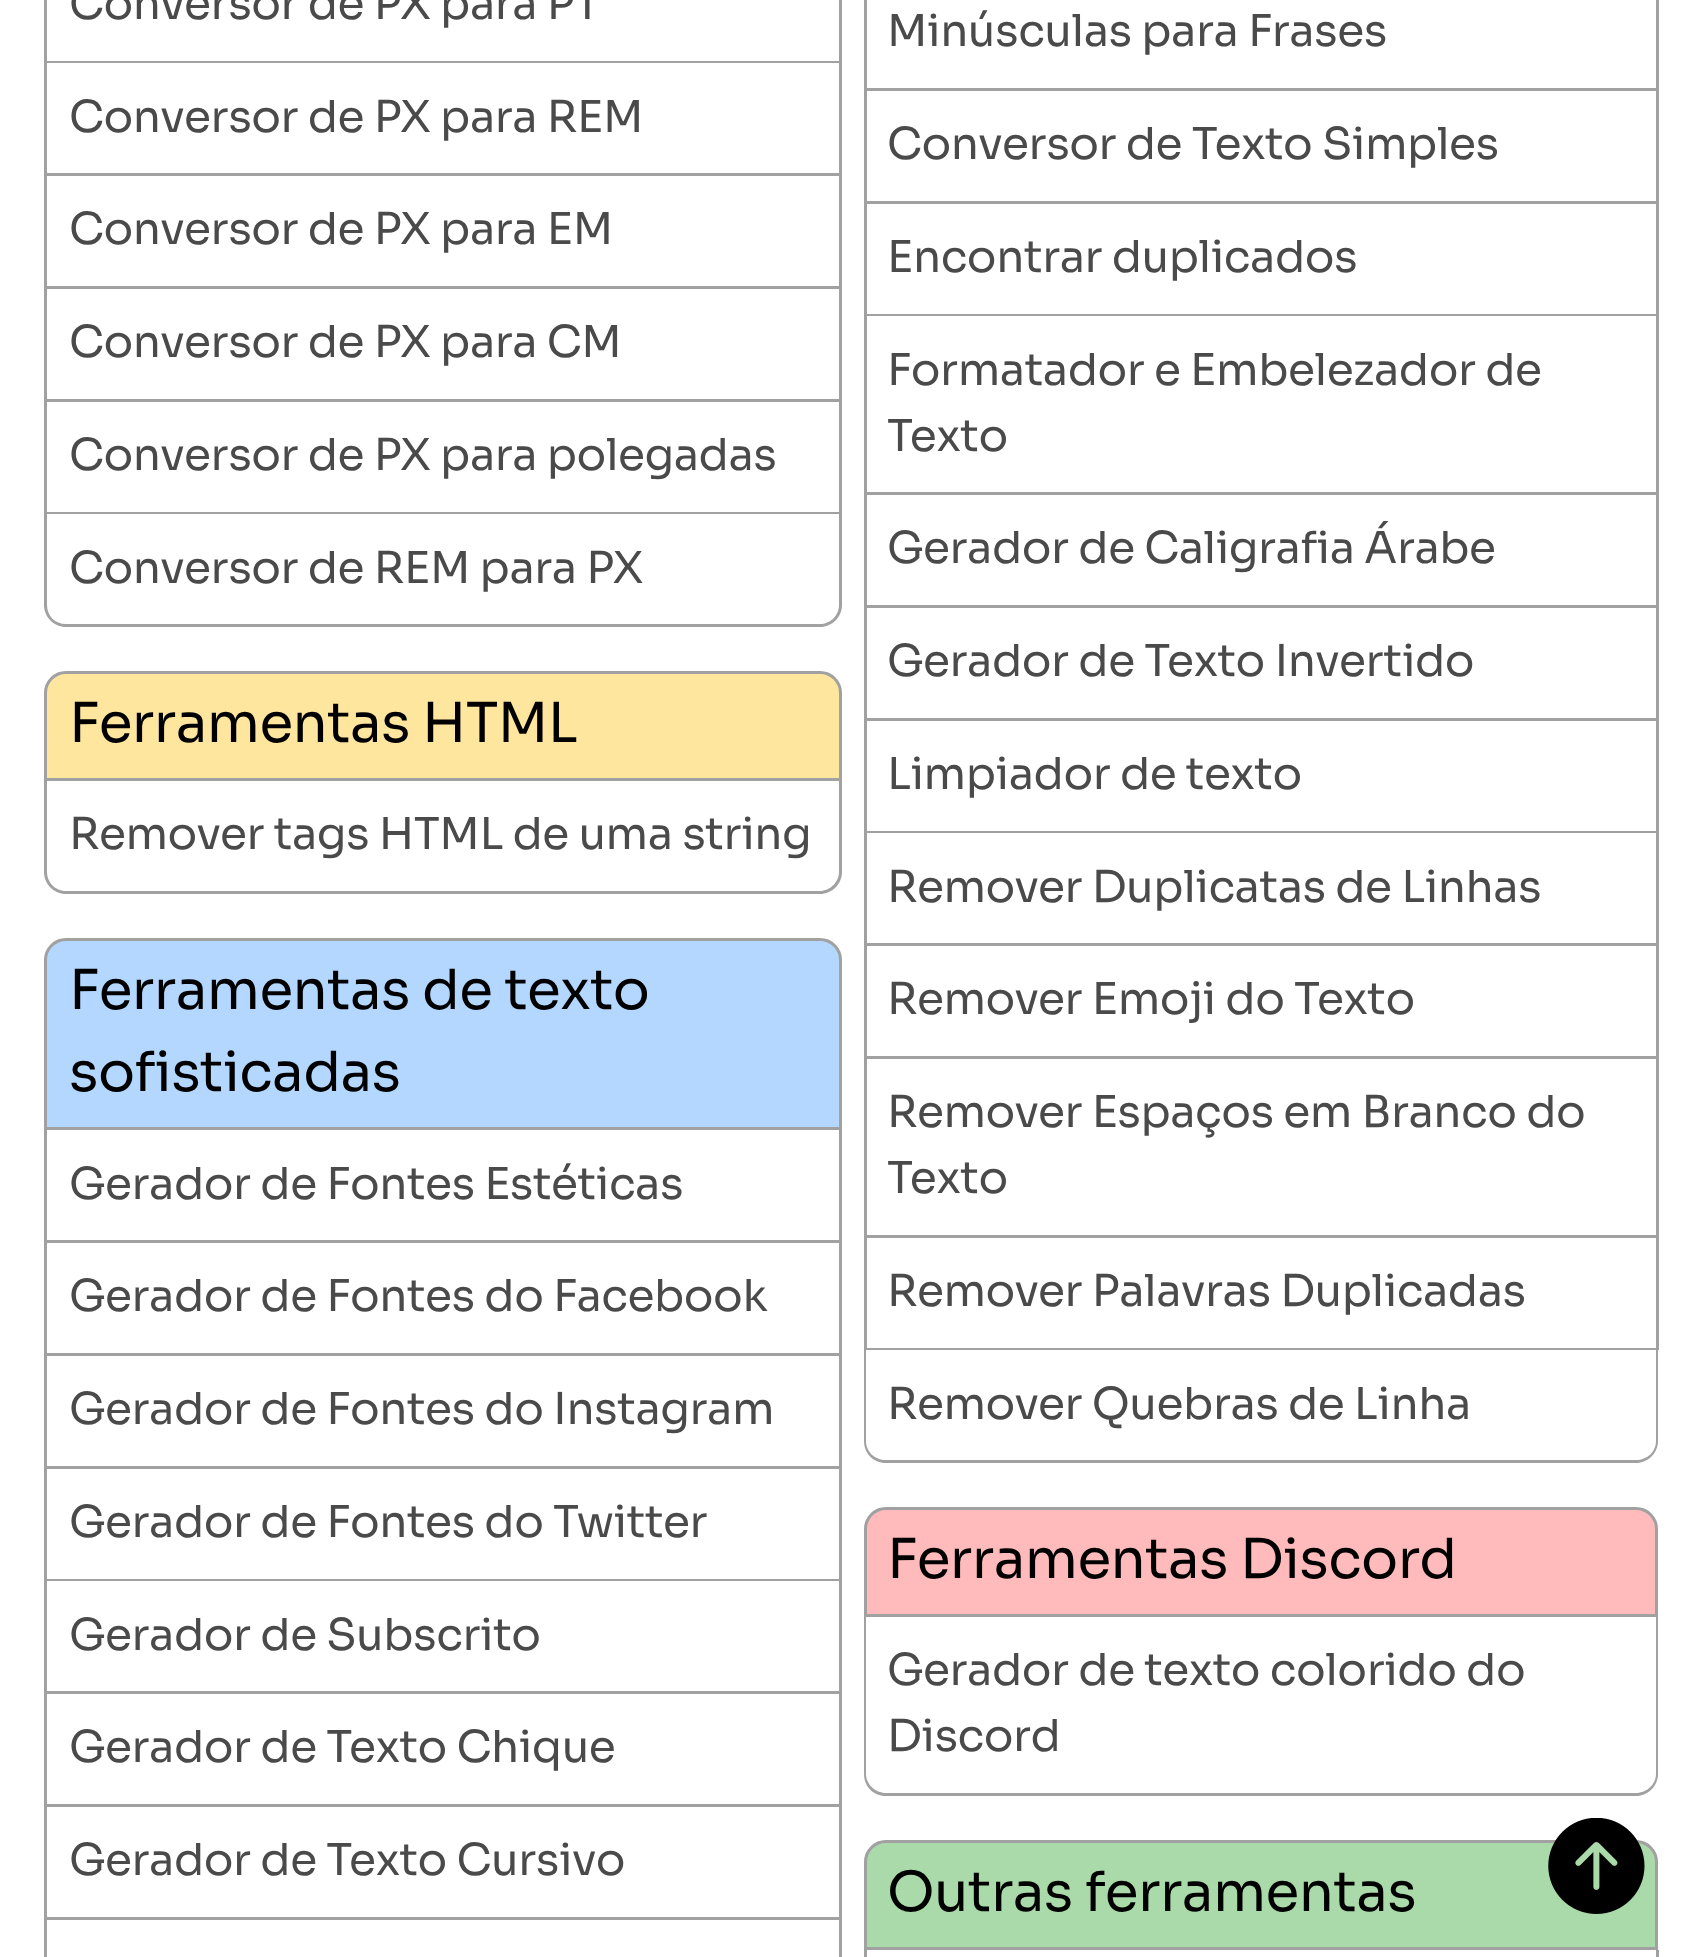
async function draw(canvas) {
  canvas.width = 1702;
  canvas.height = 1957;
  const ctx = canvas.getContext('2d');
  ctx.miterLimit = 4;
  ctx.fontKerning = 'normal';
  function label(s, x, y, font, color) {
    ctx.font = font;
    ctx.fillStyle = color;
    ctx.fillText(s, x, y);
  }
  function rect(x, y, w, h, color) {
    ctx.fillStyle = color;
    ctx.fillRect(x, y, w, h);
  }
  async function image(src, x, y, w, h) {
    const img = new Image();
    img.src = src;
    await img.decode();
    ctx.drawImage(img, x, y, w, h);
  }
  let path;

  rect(0, 0, 1702, 1957, '#fff');
  rect(839, 0, 3, 514, '#a1a1a1');
  rect(44, 61, 798, 2, '#a1a1a1');
  rect(44, 0, 3, 63, '#a1a1a1');
  ctx.letterSpacing = '-0.45px';
  label('Conversor de PX para PT', 69, 19, '44px Sora', '#4a4a4a');
  rect(44, 173, 798, 3, '#a1a1a1');
  rect(44, 63, 3, 113, '#a1a1a1');
  label('Conversor de PX para REM', 69, 132, '44px Sora', '#4a4a4a');
  rect(44, 286, 798, 3, '#a1a1a1');
  rect(44, 176, 3, 113, '#a1a1a1');
  label('Conversor de PX para EM', 69, 244, '44px Sora', '#4a4a4a');
  rect(44, 399, 798, 3, '#a1a1a1');
  rect(44, 289, 3, 113, '#a1a1a1');
  label('Conversor de PX para CM', 69, 357, '44px Sora', '#4a4a4a');
  rect(44, 512, 798, 2, '#a1a1a1');
  rect(44, 402, 3, 112, '#a1a1a1');
  label('Conversor de PX para polegadas', 69, 470, '44px Sora', '#4a4a4a');
  ctx.fillStyle = '#a1a1a1';
  path = new Path2D('M44 514H842V605C842 617 832 627 820 627H66C54 627 44 617 44 605ZM47 514H839V605C839 616 830 624 820 624H66C55 624 47 616 47 605Z');
  ctx.fill(path, 'evenodd');
  label('Conversor de REM para PX', 69, 583, '44px Sora', '#4a4a4a');
  rect(1656, 0, 3, 1350, '#a1a1a1');
  rect(864, 88, 794, 3, '#a1a1a1');
  rect(864, 0, 3, 91, '#a1a1a1');
  label('Minúsculas para Frases', 887, 46, '44px Sora', '#4a4a4a');
  rect(864, 201, 794, 3, '#a1a1a1');
  rect(864, 91, 3, 113, '#a1a1a1');
  label('Conversor de Texto Simples', 887, 159, '44px Sora', '#4a4a4a');
  rect(864, 314, 794, 2, '#a1a1a1');
  rect(864, 204, 3, 112, '#a1a1a1');
  label('Encontrar duplicados', 887, 272, '44px Sora', '#4a4a4a');
  rect(864, 492, 794, 3, '#a1a1a1');
  rect(864, 316, 3, 179, '#a1a1a1');
  label('Formatador e Embelezador de', 887, 385, '44px Sora', '#4a4a4a');
  label('Texto', 887, 451, '44px Sora', '#4a4a4a');
  rect(864, 605, 794, 3, '#a1a1a1');
  rect(864, 495, 3, 113, '#a1a1a1');
  label('Gerador de Caligrafia Árabe', 887, 563, '44px Sora', '#4a4a4a');
  rect(864, 718, 794, 3, '#a1a1a1');
  rect(864, 608, 3, 113, '#a1a1a1');
  label('Gerador de Texto Invertido', 887, 676, '44px Sora', '#4a4a4a');
  rect(864, 831, 794, 2, '#a1a1a1');
  rect(864, 721, 3, 112, '#a1a1a1');
  label('Limpiador de texto', 887, 789, '44px Sora', '#4a4a4a');
  rect(864, 943, 794, 3, '#a1a1a1');
  rect(864, 833, 3, 113, '#a1a1a1');
  label('Remover Duplicatas de Linhas', 887, 902, '44px Sora', '#4a4a4a');
  rect(864, 1056, 794, 3, '#a1a1a1');
  rect(864, 946, 3, 113, '#a1a1a1');
  label('Remover Emoji do Texto', 887, 1014, '44px Sora', '#4a4a4a');
  rect(864, 1235, 794, 3, '#a1a1a1');
  rect(864, 1059, 3, 179, '#a1a1a1');
  label('Remover Espaços em Branco do', 887, 1127, '44px Sora', '#4a4a4a');
  label('Texto', 887, 1193, '44px Sora', '#4a4a4a');
  rect(864, 1348, 794, 2, '#a1a1a1');
  rect(864, 1238, 3, 112, '#a1a1a1');
  label('Remover Palavras Duplicadas', 887, 1306, '44px Sora', '#4a4a4a');
  ctx.fillStyle = '#a1a1a1';
  path = new Path2D('M864 1350H1658V1441C1658 1453 1648 1463 1636 1463H886C873 1463 864 1453 864 1441ZM866 1350H1656V1441C1656 1452 1647 1460 1636 1460H886C875 1460 866 1452 866 1441Z');
  ctx.fill(path, 'evenodd');
  label('Remover Quebras de Linha', 887, 1419, '44px Sora', '#4a4a4a');
  ctx.fillStyle = '#ffe69f';
  ctx.beginPath();
  ctx.roundRect(45.5, 672.5, 795, 107, [20.5, 20.5, 0, 0]);
  ctx.fill();
  ctx.strokeStyle = '#a1a1a1';
  ctx.lineWidth = 3;
  ctx.stroke();
  ctx.letterSpacing = '-0.55px';
  label('Ferramentas HTML', 69, 742, '55px Sora', '#000');
  ctx.fillStyle = '#a1a1a1';
  path = new Path2D('M44 781H842V872C842 884 832 894 820 894H66C54 894 44 884 44 872ZM47 781H839V872C839 882 830 891 820 891H66C55 891 47 882 47 872Z');
  ctx.fill(path, 'evenodd');
  ctx.letterSpacing = '-0.45px';
  label('Remover tags HTML de uma string', 69, 849, '44px Sora', '#4a4a4a');
  ctx.fillStyle = '#b3d7ff';
  ctx.beginPath();
  ctx.roundRect(45.5, 939.5, 795, 189, [20.5, 20.5, 0, 0]);
  ctx.fill();
  ctx.stroke();
  ctx.letterSpacing = '-0.55px';
  label('Ferramentas de texto', 69, 1009, '55px Sora', '#000');
  label('sofisticadas', 69, 1091, '55px Sora', '#000');
  rect(839, 1130, 3, 827, '#a1a1a1');
  rect(44, 1240, 798, 3, '#a1a1a1');
  rect(44, 1130, 3, 113, '#a1a1a1');
  ctx.letterSpacing = '-0.45px';
  label('Gerador de Fontes Estéticas', 69, 1199, '44px Sora', '#4a4a4a');
  rect(44, 1353, 798, 3, '#a1a1a1');
  rect(44, 1243, 3, 113, '#a1a1a1');
  label('Gerador de Fontes do Facebook', 69, 1311, '44px Sora', '#4a4a4a');
  rect(44, 1466, 798, 3, '#a1a1a1');
  rect(44, 1356, 3, 113, '#a1a1a1');
  label('Gerador de Fontes do Instagram', 69, 1424, '44px Sora', '#4a4a4a');
  rect(44, 1579, 798, 2, '#a1a1a1');
  rect(44, 1469, 3, 112, '#a1a1a1');
  label('Gerador de Fontes do Twitter', 69, 1537, '44px Sora', '#4a4a4a');
  rect(44, 1691, 798, 3, '#a1a1a1');
  rect(44, 1581, 3, 113, '#a1a1a1');
  label('Gerador de Subscrito', 69, 1650, '44px Sora', '#4a4a4a');
  rect(44, 1804, 798, 3, '#a1a1a1');
  rect(44, 1694, 3, 113, '#a1a1a1');
  label('Gerador de Texto Chique', 69, 1762, '44px Sora', '#4a4a4a');
  rect(44, 1917, 798, 3, '#a1a1a1');
  rect(44, 1807, 3, 150, '#a1a1a1');
  label('Gerador de Texto Cursivo', 69, 1875, '44px Sora', '#4a4a4a');
  ctx.fillStyle = '#fbb';
  ctx.beginPath();
  ctx.roundRect(865.5, 1508.5, 791, 107, [20.5, 20.5, 0, 0]);
  ctx.fill();
  ctx.stroke();
  ctx.letterSpacing = '-0.55px';
  label('Ferramentas Discord', 887, 1578, '55px Sora', '#000');
  ctx.fillStyle = '#a1a1a1';
  path = new Path2D('M864 1617H1658V1774C1658 1786 1648 1796 1636 1796H886C873 1796 864 1786 864 1774ZM866 1617H1656V1774C1656 1784 1647 1793 1636 1793H886C875 1793 866 1784 866 1774Z');
  ctx.fill(path, 'evenodd');
  ctx.letterSpacing = '-0.45px';
  label('Gerador de texto colorido do', 887, 1685, '44px Sora', '#4a4a4a');
  label('Discord', 887, 1751, '44px Sora', '#4a4a4a');
  ctx.fillStyle = '#aadaaa';
  ctx.beginPath();
  ctx.roundRect(865.5, 1841.5, 791, 107, [20.5, 20.5, 0, 0]);
  ctx.fill();
  ctx.stroke();
  ctx.letterSpacing = '-0.55px';
  label('Outras ferramentas', 887, 1911, '55px Sora', '#000');
  rect(1656, 1950, 3, 7, '#a1a1a1');
  rect(864, 1950, 3, 7, '#a1a1a1');
  await image('assets/img1.png', 1548, 1818, 97, 96);
}

draw(document.querySelector('canvas'));
